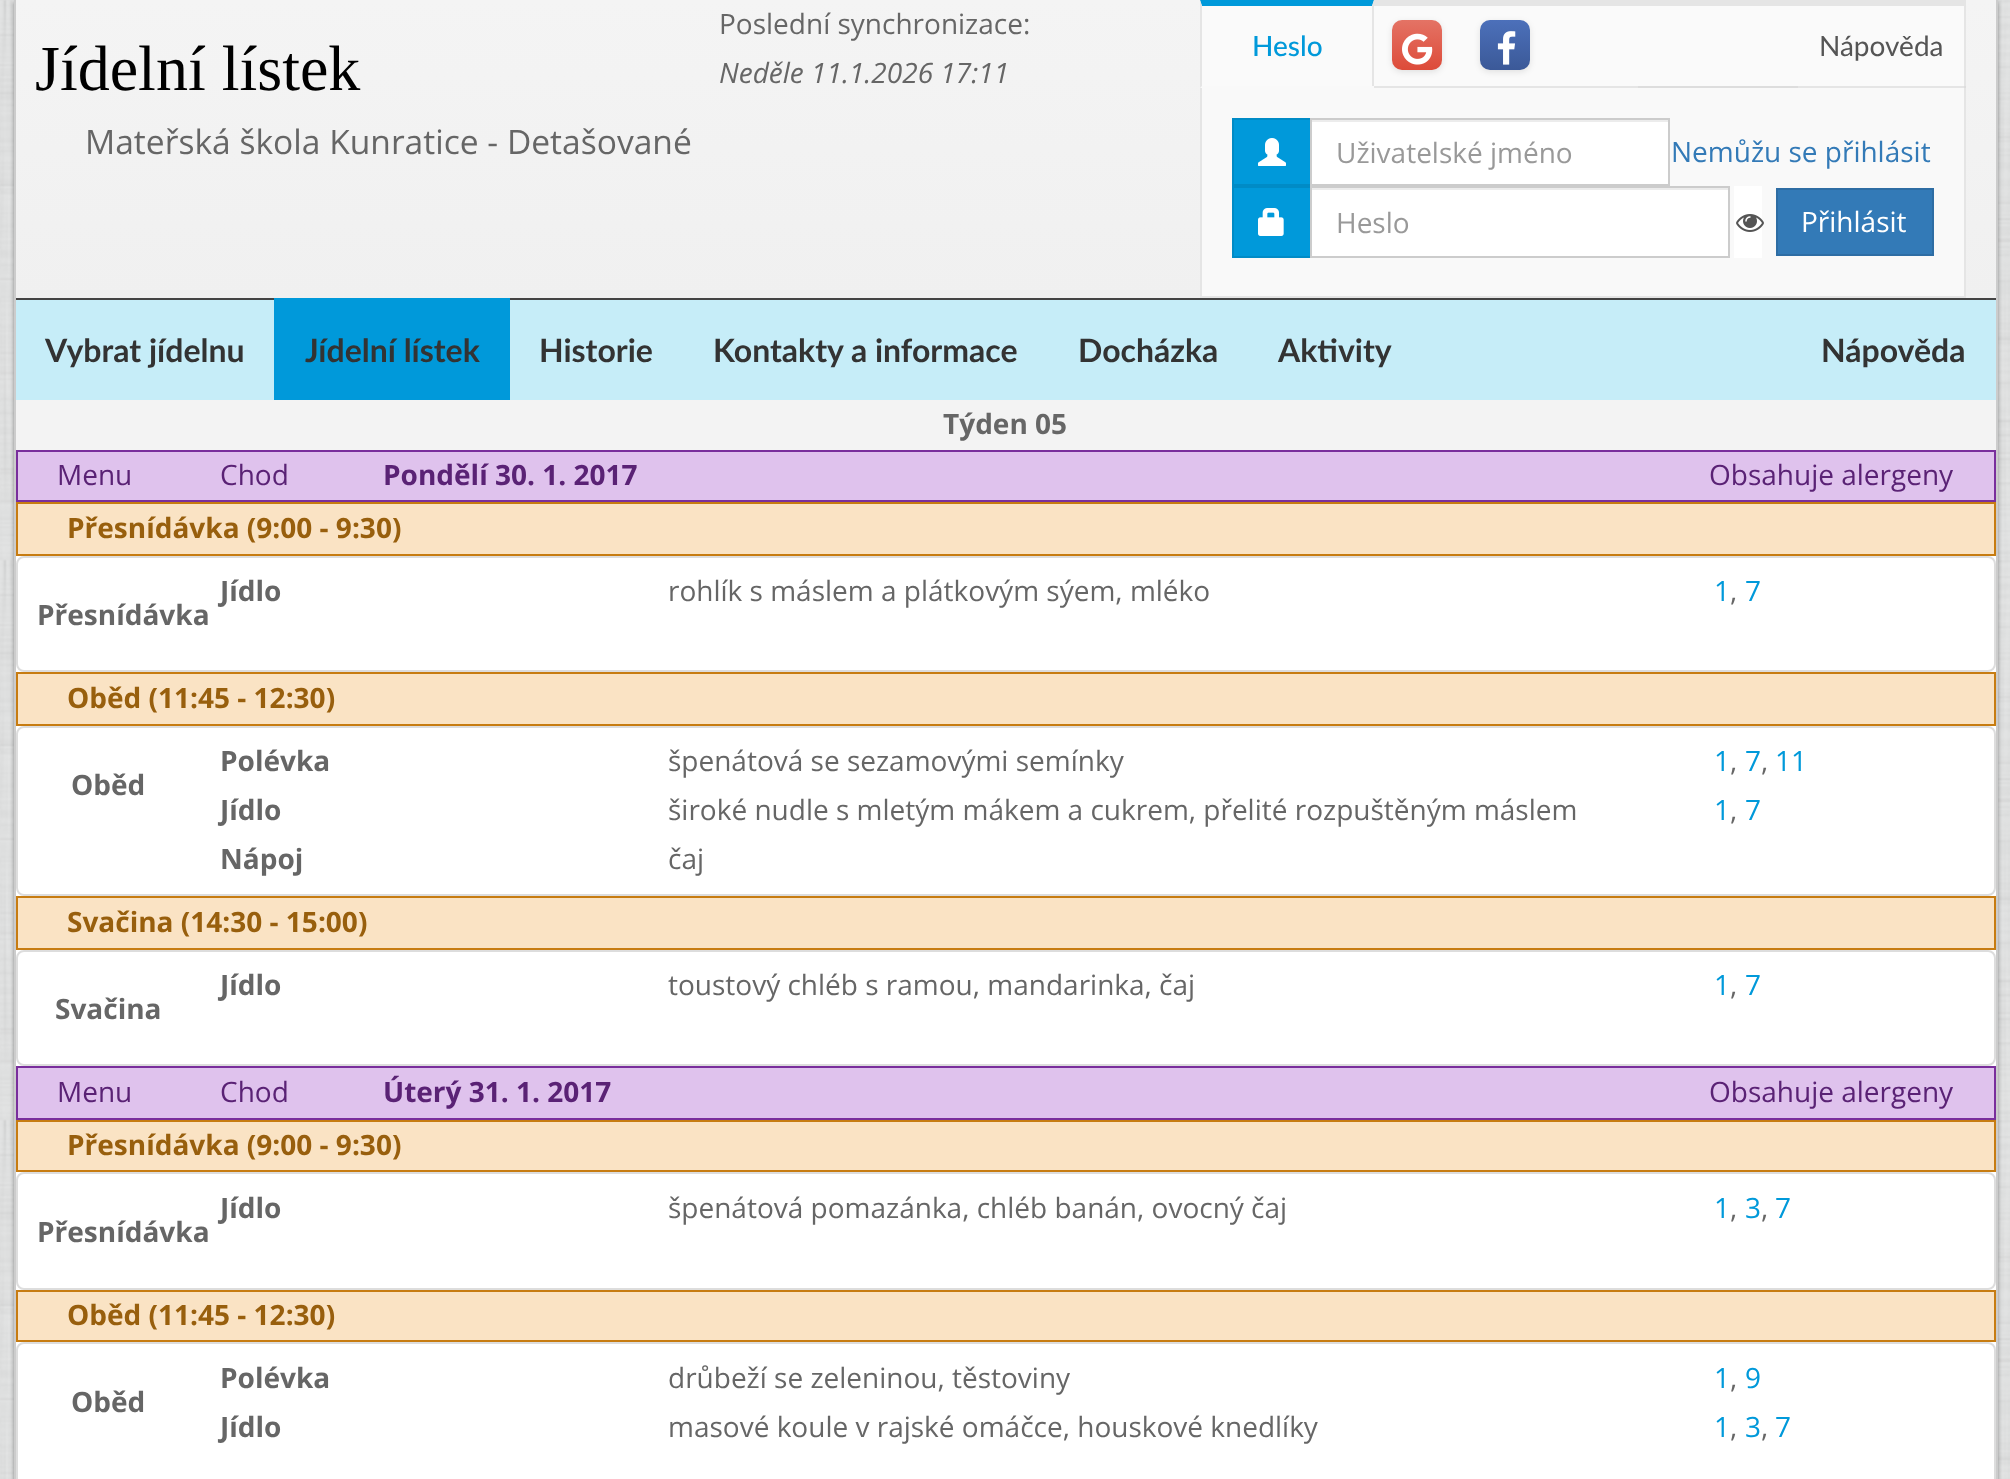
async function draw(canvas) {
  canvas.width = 2010;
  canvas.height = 1479;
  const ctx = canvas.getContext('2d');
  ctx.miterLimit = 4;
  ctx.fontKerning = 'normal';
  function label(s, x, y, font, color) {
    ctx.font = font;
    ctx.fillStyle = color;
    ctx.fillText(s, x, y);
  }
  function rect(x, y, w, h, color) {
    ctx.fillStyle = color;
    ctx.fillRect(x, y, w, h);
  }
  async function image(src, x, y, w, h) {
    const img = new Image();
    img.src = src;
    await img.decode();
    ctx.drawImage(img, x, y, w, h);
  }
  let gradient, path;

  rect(0, 0, 2010, 1479, '#fff');
  await image('assets/img1.png', 0, 0, 2010, 1479);
  ctx.fillStyle = '#00000066';
  ctx.filter = 'blur(2px)';
  ctx.beginPath();
  ctx.rect(14, 2, 1984, 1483);
  ctx.fill();
  ctx.filter = 'none';
  rect(16, 556, 1980, 923, '#fff');
  rect(1996, 0, 2, 1479, '#ccc');
  rect(14, 0, 2, 1479, '#ccc');
  gradient = ctx.createLinearGradient(1006, 298, 1006, 0);
  gradient.addColorStop(0, '#f0f0f0');
  gradient.addColorStop(1, '#f4f4f4');
  ctx.fillStyle = gradient;
  ctx.fillRect(16, 0, 1980, 298);
  label('Jídelní lístek', 35, 90, '64px Liberation Serif', '#000');
  label('Poslední synchronizace:', 719, 34, '28px Open Sans', '#666');
  label('Neděle 11.1.2026 17:11', 719, 83, 'italic 28px Open Sans', '#666');
  label('Mateřská škola Kunratice - Detašované', 85, 154, '33.6px Open Sans', '#666');
  rect(1202, 6, 762, 80, '#fafafa');
  rect(1200, 0, 764, 6, '#e5e5e5');
  rect(1964, 0, 2, 298, '#e5e5e5');
  rect(1638, 86, 328, 2, '#ddd');
  rect(1372, 86, 266, 2, '#e5e5e5');
  ctx.fillStyle = '#0000001a';
  ctx.filter = 'blur(3px)';
  ctx.beginPath();
  ctx.roundRect(1392, 22, 50, 50, 10);
  ctx.fill();
  ctx.filter = 'none';
  gradient = ctx.createLinearGradient(1417, 70, 1417, 20);
  gradient.addColorStop(0, '#dd4b39');
  gradient.addColorStop(1, '#e47365');
  ctx.fillStyle = gradient;
  ctx.beginPath();
  ctx.roundRect(1392, 20, 50, 50, 10);
  ctx.fill();
  await image('assets/img2.png', 1402, 33, 31, 32);
  ctx.fillStyle = '#0099da';
  path = new Path2D('M1200 0H1374L1372 6H1202Z');
  ctx.fill(path);
  ctx.fillStyle = '#e5e5e5';
  path = new Path2D('M1374 0V88L1372 86V6Z');
  ctx.fill(path);
  rect(1200, 86, 174, 2, '#f9f9f9');
  ctx.fillStyle = '#e5e5e5';
  path = new Path2D('M1200 88V0L1202 6V86Z');
  ctx.fill(path);
  label('Heslo', 1252, 56, '500 28px Lato', '#0099da');
  ctx.fillStyle = '#0000001a';
  ctx.filter = 'blur(3px)';
  ctx.beginPath();
  ctx.roundRect(1480, 22, 50, 50, 10);
  ctx.fill();
  ctx.filter = 'none';
  gradient = ctx.createLinearGradient(1505, 70, 1505, 20);
  gradient.addColorStop(0, '#3b5998');
  gradient.addColorStop(1, '#4c70ba');
  ctx.fillStyle = gradient;
  ctx.beginPath();
  ctx.roundRect(1480, 20, 50, 50, 10);
  ctx.fill();
  await image('assets/img3.png', 1497, 31, 19, 34);
  rect(1798, 86, 166, 2, '#e5e5e5');
  label('Nápověda', 1819, 56, '28px Lato', '#555');
  rect(1202, 88, 762, 208, '#f9f9f9');
  rect(1200, 296, 766, 2, '#e5e5e5');
  rect(1200, 88, 2, 210, '#e5e5e5');
  rect(1234, 120, 76, 64, '#0099da');
  rect(1232, 118, 78, 2, '#008bc6');
  rect(1232, 184, 78, 4, '#008bc6');
  rect(1232, 118, 2, 68, '#008bc6');
  await image('assets/img4.png', 1258, 138, 28, 28);
  rect(1312, 122, 356, 62, '#fff');
  rect(1312, 120, 356, 2, '#ececec');
  ctx.strokeStyle = '#ccc';
  ctx.lineWidth = 2;
  ctx.strokeRect(1311, 119, 358, 66);
  label('Uživatelské jméno', 1336, 163, '28px Open Sans', '#999');
  label('Nemůžu se přihlásit', 1671, 162, '28px Open Sans', '#337ab7');
  rect(1234, 188, 76, 68, '#0099da');
  rect(1232, 256, 78, 2, '#008bc6');
  rect(1232, 186, 2, 72, '#008bc6');
  await image('assets/img5.png', 1258, 208, 26, 28);
  rect(1312, 190, 416, 66, '#fff');
  rect(1312, 188, 416, 2, '#ececec');
  ctx.strokeRect(1311, 187, 418, 70);
  label('Heslo', 1336, 233, '28px Open Sans', '#999');
  rect(1734, 186, 28, 72, '#fff');
  await image('assets/img6.png', 1736, 214, 28, 18);
  ctx.fillStyle = '#337ab7';
  ctx.beginPath();
  ctx.rect(1777, 189, 156, 66);
  ctx.fill();
  ctx.strokeStyle = '#2e6da4';
  ctx.stroke();
  label('Přihlásit', 1801, 232, '28px Open Sans', '#fff');
  rect(16, 300, 1980, 100, '#c6edf8');
  rect(16, 298, 1980, 2, '#444');
  label('Vybrat jídelnu', 45, 362, 'bold 32px Lato', '#333');
  rect(274, 298, 236, 102, '#0099da');
  label('Jídelní lístek', 305, 362, 'bold 32px Lato', '#333');
  label('Historie', 539, 362, 'bold 32px Lato', '#333');
  label('Kontakty a informace', 713, 362, 'bold 32px Lato', '#333');
  label('Docházka', 1078, 362, 'bold 32px Lato', '#333');
  label('Aktivity', 1278, 362, 'bold 32px Lato', '#333');
  label('Nápověda', 1821, 362, 'bold 32px Lato', '#333');
  rect(16, 400, 1980, 50, '#f3f3f3');
  label('Týden 05', 943, 434, 'bold 28px Open Sans', '#666');
  ctx.fillStyle = '#dfc2ed';
  ctx.beginPath();
  ctx.rect(17, 451, 1978, 50);
  ctx.fill();
  ctx.strokeStyle = '#792e9c';
  ctx.stroke();
  label('Menu', 57, 485, '28px Open Sans', '#5a2275');
  label('Chod', 220, 485, '28px Open Sans', '#5a2275');
  label('Pondělí 30. 1. 2017', 383, 485, 'bold 28px Open Sans', '#5a2275');
  label('Obsahuje alergeny', 1709, 485, '28px Open Sans', '#5a2275');
  ctx.fillStyle = '#fae3c4';
  ctx.beginPath();
  ctx.rect(17, 503, 1978, 52);
  ctx.fill();
  ctx.strokeStyle = '#c77c11';
  ctx.stroke();
  label('Přesnídávka (9:00 - 9:30)', 67, 538, 'bold 28px Open Sans', '#985f0d');
  ctx.beginPath();
  ctx.roundRect(17, 557, 1978, 114, 7);
  ctx.strokeStyle = '#ddd';
  ctx.stroke();
  label('Jídlo', 220, 601, 'bold 28px Open Sans', '#666');
  label('rohlík s máslem a plátkovým sýem, mléko', 668, 601, '28px Open Sans', '#666');
  label('1', 1714, 601, '28px Open Sans', '#0099da');
  label(',', 1730, 601, '28px Open Sans', '#666');
  label('7', 1745, 601, '28px Open Sans', '#0099da');
  label('Přesnídávka', 37, 625, 'bold 28px Open Sans', '#666');
  ctx.fillStyle = '#fae3c4';
  ctx.beginPath();
  ctx.rect(17, 673, 1978, 52);
  ctx.fill();
  ctx.strokeStyle = '#c77c11';
  ctx.stroke();
  label('Oběd (11:45 - 12:30)', 67, 708, 'bold 28px Open Sans', '#985f0d');
  ctx.beginPath();
  ctx.roundRect(17, 727, 1978, 168, 7);
  ctx.strokeStyle = '#ddd';
  ctx.stroke();
  label('Oběd', 71, 795, 'bold 28px Open Sans', '#666');
  label('Polévka', 220, 771, 'bold 28px Open Sans', '#666');
  label('špenátová se sezamovými semínky', 668, 771, '28px Open Sans', '#666');
  label('1', 1714, 771, '28px Open Sans', '#0099da');
  label(',', 1730, 771, '28px Open Sans', '#666');
  label('7', 1745, 771, '28px Open Sans', '#0099da');
  label(',', 1761, 771, '28px Open Sans', '#666');
  label('11', 1775, 771, '28px Open Sans', '#0099da');
  label('Jídlo', 220, 820, 'bold 28px Open Sans', '#666');
  label('široké nudle s mletým mákem a cukrem, přelité rozpuštěným máslem', 668, 820, '28px Open Sans', '#666');
  label('1', 1714, 820, '28px Open Sans', '#0099da');
  label(',', 1730, 820, '28px Open Sans', '#666');
  label('7', 1745, 820, '28px Open Sans', '#0099da');
  label('Nápoj', 220, 869, 'bold 28px Open Sans', '#666');
  label('čaj', 668, 869, '28px Open Sans', '#666');
  ctx.fillStyle = '#fae3c4';
  ctx.beginPath();
  ctx.rect(17, 897, 1978, 52);
  ctx.fill();
  ctx.strokeStyle = '#c77c11';
  ctx.stroke();
  label('Svačina (14:30 - 15:00)', 67, 932, 'bold 28px Open Sans', '#985f0d');
  ctx.beginPath();
  ctx.roundRect(17, 951, 1978, 114, 7);
  ctx.strokeStyle = '#ddd';
  ctx.stroke();
  label('Jídlo', 220, 995, 'bold 28px Open Sans', '#666');
  label('toustový chléb s ramou, mandarinka, čaj', 668, 995, '28px Open Sans', '#666');
  label('1', 1714, 995, '28px Open Sans', '#0099da');
  label(',', 1730, 995, '28px Open Sans', '#666');
  label('7', 1745, 995, '28px Open Sans', '#0099da');
  label('Svačina', 55, 1019, 'bold 28px Open Sans', '#666');
  ctx.fillStyle = '#dfc2ed';
  ctx.beginPath();
  ctx.rect(17, 1067, 1978, 52);
  ctx.fill();
  ctx.strokeStyle = '#792e9c';
  ctx.stroke();
  label('Menu', 57, 1102, '28px Open Sans', '#5a2275');
  label('Chod', 220, 1102, '28px Open Sans', '#5a2275');
  label('Úterý 31. 1. 2017', 383, 1102, 'bold 28px Open Sans', '#5a2275');
  label('Obsahuje alergeny', 1709, 1102, '28px Open Sans', '#5a2275');
  ctx.fillStyle = '#fae3c4';
  ctx.beginPath();
  ctx.rect(17, 1121, 1978, 50);
  ctx.fill();
  ctx.strokeStyle = '#c77c11';
  ctx.stroke();
  label('Přesnídávka (9:00 - 9:30)', 67, 1155, 'bold 28px Open Sans', '#985f0d');
  ctx.beginPath();
  ctx.roundRect(17, 1173, 1978, 116, 7);
  ctx.strokeStyle = '#ddd';
  ctx.stroke();
  label('Jídlo', 220, 1218, 'bold 28px Open Sans', '#666');
  label('špenátová pomazánka, chléb banán, ovocný čaj', 668, 1218, '28px Open Sans', '#666');
  label('1', 1714, 1218, '28px Open Sans', '#0099da');
  label(',', 1730, 1218, '28px Open Sans', '#666');
  label('3', 1745, 1218, '28px Open Sans', '#0099da');
  label(',', 1761, 1218, '28px Open Sans', '#666');
  label('7', 1775, 1218, '28px Open Sans', '#0099da');
  label('Přesnídávka', 37, 1242, 'bold 28px Open Sans', '#666');
  ctx.fillStyle = '#fae3c4';
  ctx.beginPath();
  ctx.rect(17, 1291, 1978, 50);
  ctx.fill();
  ctx.strokeStyle = '#c77c11';
  ctx.stroke();
  label('Oběd (11:45 - 12:30)', 67, 1325, 'bold 28px Open Sans', '#985f0d');
  ctx.beginPath();
  ctx.roundRect(17, 1343, 1978, 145, 7);
  ctx.strokeStyle = '#ddd';
  ctx.stroke();
  label('Oběd', 71, 1412, 'bold 28px Open Sans', '#666');
  label('Polévka', 220, 1388, 'bold 28px Open Sans', '#666');
  label('drůbeží se zeleninou, těstoviny', 668, 1388, '28px Open Sans', '#666');
  label('1', 1714, 1388, '28px Open Sans', '#0099da');
  label(',', 1730, 1388, '28px Open Sans', '#666');
  label('9', 1745, 1388, '28px Open Sans', '#0099da');
  label('Jídlo', 220, 1437, 'bold 28px Open Sans', '#666');
  label('masové koule v rajské omáčce, houskové knedlíky', 668, 1437, '28px Open Sans', '#666');
  label('1', 1714, 1437, '28px Open Sans', '#0099da');
  label(',', 1730, 1437, '28px Open Sans', '#666');
  label('3', 1745, 1437, '28px Open Sans', '#0099da');
  label(',', 1761, 1437, '28px Open Sans', '#666');
  label('7', 1775, 1437, '28px Open Sans', '#0099da');
}

draw(document.querySelector('canvas'));
